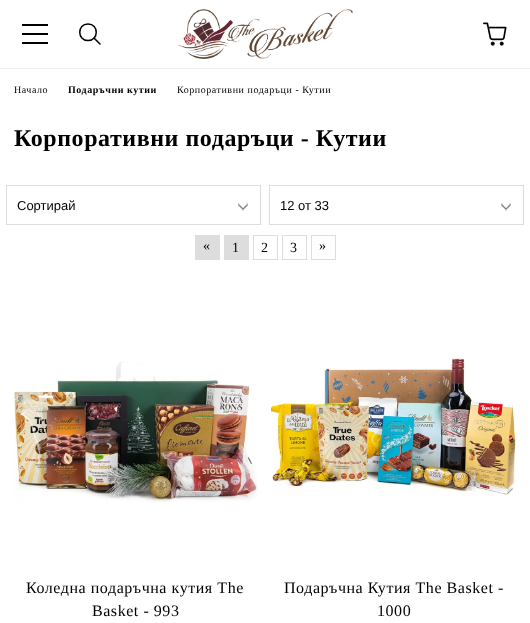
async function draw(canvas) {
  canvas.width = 530;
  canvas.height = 623;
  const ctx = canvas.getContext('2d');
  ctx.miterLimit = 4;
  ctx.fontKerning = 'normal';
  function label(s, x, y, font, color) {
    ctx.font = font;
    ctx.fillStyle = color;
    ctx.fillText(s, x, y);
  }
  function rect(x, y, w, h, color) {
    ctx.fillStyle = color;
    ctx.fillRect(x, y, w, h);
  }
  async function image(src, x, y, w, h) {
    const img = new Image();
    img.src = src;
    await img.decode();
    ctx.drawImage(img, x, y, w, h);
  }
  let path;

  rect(0, 0, 530, 623, '#fff');
  rect(0, 68, 530, 1, '#f1f1f1');
  rect(22, 24, 26, 2, '#000');
  rect(22, 33, 26, 2, '#000');
  rect(22, 42, 26, 2, '#000');
  path = new Path2D('M88 24C77 24 77 40.5 88 40.5C99 40.5 99 24 88 24Z');
  ctx.strokeStyle = '#000';
  ctx.lineWidth = 1.5;
  ctx.stroke(path);
  path = new Path2D('M94 38L100 44');
  ctx.lineCap = 'round';
  ctx.stroke(path);
  await image('assets/img1.png', 177, 9, 176, 50);
  await image('assets/img2.png', 483, 22, 24, 24);
  ctx.letterSpacing = '0.55px';
  label('Начало', 14, 93, '10px Liberation Serif', '#000');
  label('Подаръчни кутии', 68, 93, 'bold 10px Liberation Serif', '#000');
  label('Корпоративни подаръци - Кутии', 177, 93, '10px Liberation Serif', '#000');
  label('Корпоративни подаръци - Кутии', 14, 146, 'bold 24px Liberation Serif', '#000');
  await image('assets/img3.png', 238, 203, 10, 8);
  ctx.strokeStyle = '#ddd';
  ctx.lineWidth = 1;
  ctx.strokeRect(6.5, 185.5, 254, 39);
  ctx.letterSpacing = '0px';
  label('Сортирай', 17, 210, '13px Liberation Sans', '#000');
  await image('assets/img3.png', 501, 203, 10, 8);
  ctx.strokeRect(269.5, 185.5, 254, 39);
  label('12 от 33', 280, 210, '13px Liberation Sans', '#000');
  rect(195, 235, 25, 25, '#ddd');
  ctx.letterSpacing = '0.55px';
  label('«', 203, 250, '14px Liberation Serif', '#000');
  rect(224, 235, 25, 25, '#ddd');
  label('1', 232, 252, '14px Liberation Serif', '#000');
  ctx.strokeRect(253.5, 235.5, 24, 24);
  label('2', 261, 252, '14px Liberation Serif', '#000');
  ctx.strokeRect(282.5, 235.5, 24, 24);
  label('3', 290, 252, '14px Liberation Serif', '#000');
  ctx.strokeRect(311.5, 235.5, 24, 24);
  label('»', 319, 250, '14px Liberation Serif', '#000');
  await image('assets/img4.png', 14, 361, 244, 142);
  label('Коледна подаръчна кутия The', 26, 593, '16px Liberation Serif', '#000');
  label('Basket - 993', 92, 616, '16px Liberation Serif', '#000');
  await image('assets/img5.png', 271, 358, 245, 137);
  label('Подаръчна Кутия The Basket -', 284, 593, '16px Liberation Serif', '#000');
  label('1000', 377, 616, '16px Liberation Serif', '#000');
}

draw(document.querySelector('canvas'));
